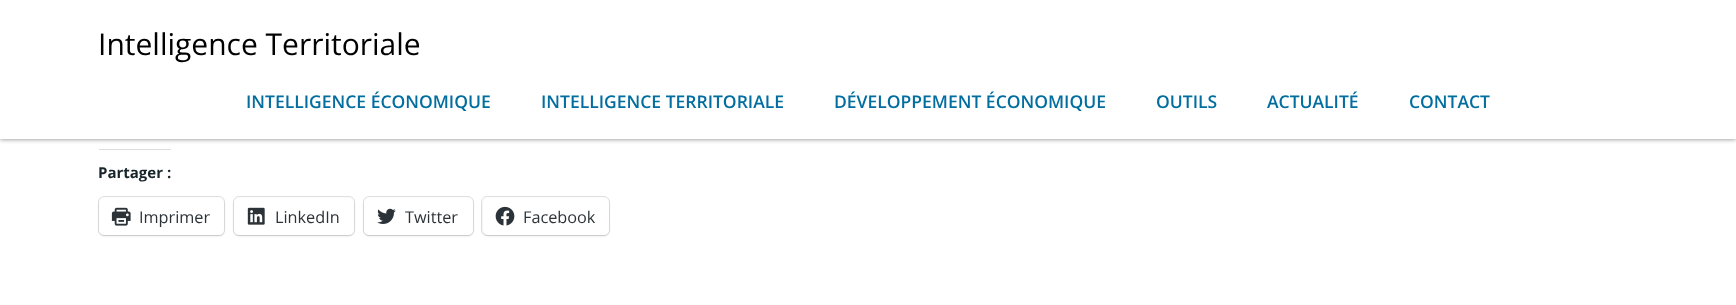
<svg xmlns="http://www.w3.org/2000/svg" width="1736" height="305">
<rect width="100%" height="100%" fill="#fff"/>
<rect width="1736" height="139" fill="#00000080" filter="blur(2.5px)"/>
<rect width="1736" height="139" fill="#fff"/>
<text x="98" y="55" style="font-family:Open Sans;font-size:30px;fill:#000">Intelligence Territoriale</text>
<text x="246" y="108" style="font-family:Open Sans;font-size:17.5px;font-weight:600;fill:#026e9f">INTELLIGENCE ÉCONOMIQUE</text>
<text x="541" y="108" style="font-family:Open Sans;font-size:17.5px;font-weight:600;fill:#026e9f">INTELLIGENCE TERRITORIALE</text>
<text x="834" y="108" style="font-family:Open Sans;font-size:17.5px;font-weight:600;fill:#026e9f">DÉVELOPPEMENT ÉCONOMIQUE</text>
<text x="1156" y="108" style="font-family:Open Sans;font-size:17.5px;font-weight:600;fill:#026e9f">OUTILS</text>
<text x="1267" y="108" style="font-family:Open Sans;font-size:17.5px;font-weight:600;fill:#026e9f">ACTUALITÉ</text>
<text x="1409" y="108" style="font-family:Open Sans;font-size:17.5px;font-weight:600;fill:#026e9f">CONTACT</text>
<rect x="99" y="149" width="72" height="1" fill="#dcdcde"/>
<text x="98" y="178" style="font-family:Open Sans;font-size:15px;font-weight:bold;fill:#17252a">Partager :</text>
<rect x="98.5" y="196.5" width="126" height="39" rx="5.5" fill="none" stroke="#e0e0e0"/>
<rect x="99" y="199" width="125" height="37" rx="5" fill="#0000001f" filter="blur(1px)"/>
<rect x="99" y="198" width="125" height="37" rx="5" fill="#fff"/>
<image x="111" y="207" width="20" height="19" href="media/1.png"/>
<text x="139" y="223" style="font-family:Open Sans;font-size:16.25px;fill:#2c3338">Imprimer</text>
<rect x="233.5" y="196.5" width="121" height="39" rx="5.5" fill="none" stroke="#e0e0e0"/>
<rect x="234" y="199" width="120" height="37" rx="5" fill="#0000001f" filter="blur(1px)"/>
<rect x="234" y="198" width="120" height="37" rx="5" fill="#fff"/>
<image x="247" y="207" width="18" height="18" href="media/2.png"/>
<text x="275" y="223" style="font-family:Open Sans;font-size:16.25px;fill:#2c3338">LinkedIn</text>
<rect x="363.5" y="196.5" width="110" height="39" rx="5.5" fill="none" stroke="#e0e0e0"/>
<rect x="364" y="199" width="109" height="37" rx="5" fill="#0000001f" filter="blur(1px)"/>
<rect x="364" y="198" width="109" height="37" rx="5" fill="#fff"/>
<image x="377" y="208" width="19" height="16" href="media/3.png"/>
<text x="405" y="223" style="font-family:Open Sans;font-size:16.25px;fill:#2c3338">Twitter</text>
<rect x="481.5" y="196.5" width="128" height="39" rx="5.5" fill="none" stroke="#e0e0e0"/>
<rect x="483" y="199" width="126" height="37" rx="5" fill="#0000001f" filter="blur(1px)"/>
<rect x="483" y="198" width="126" height="37" rx="5" fill="#fff"/>
<image x="495" y="206" width="20" height="20" href="media/4.png"/>
<text x="523" y="223" style="font-family:Open Sans;font-size:16.25px;fill:#2c3338">Facebook</text>
</svg>
